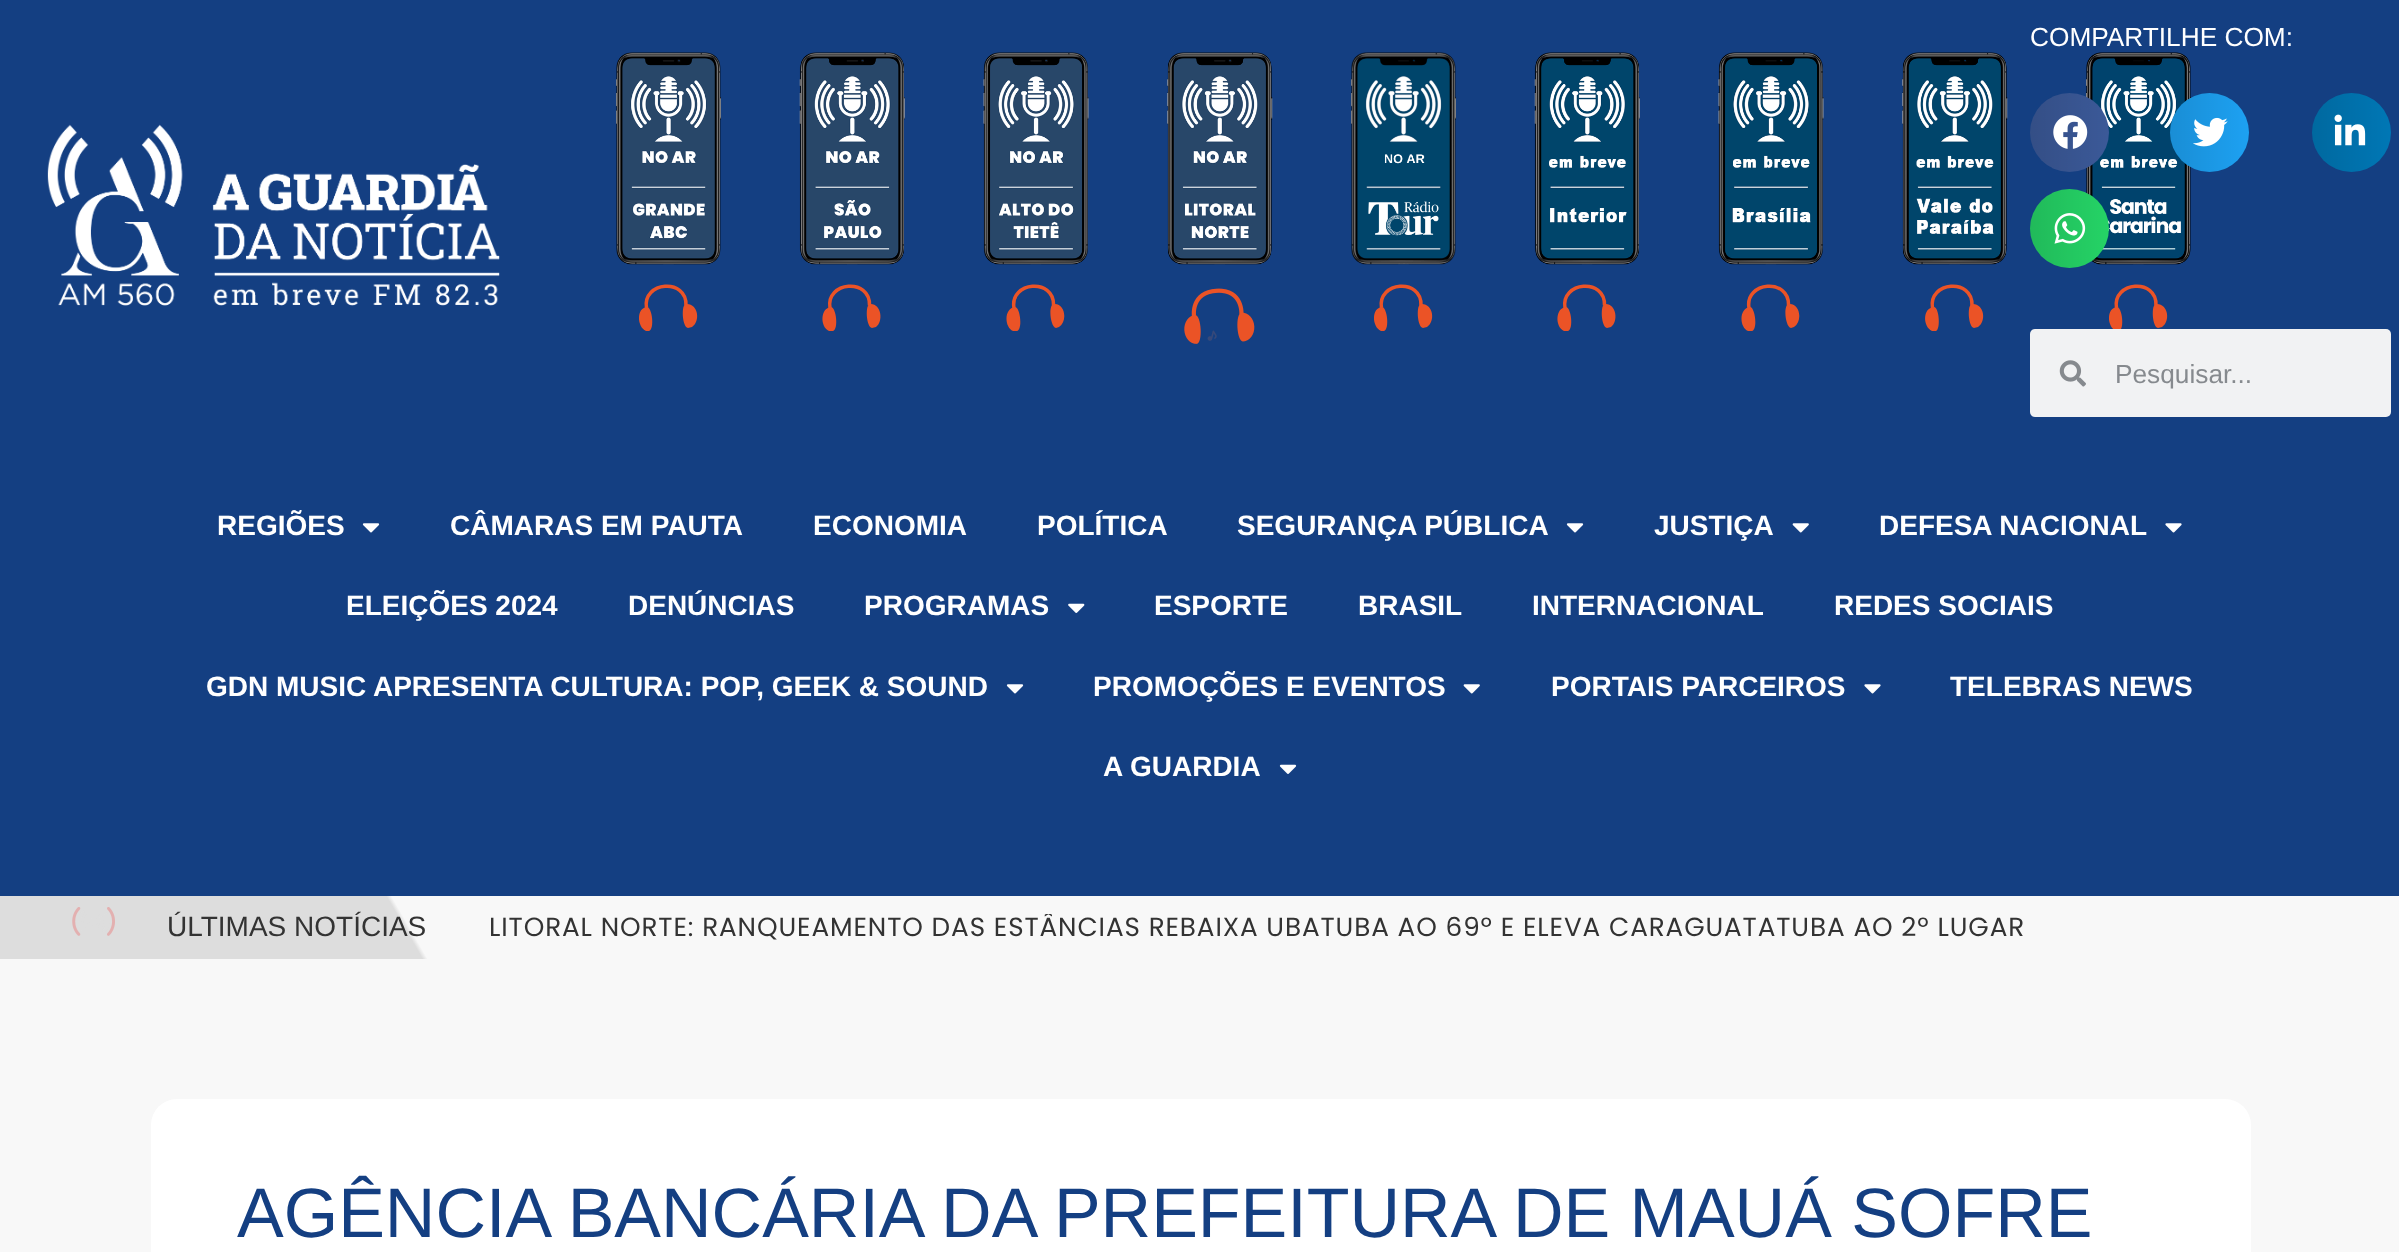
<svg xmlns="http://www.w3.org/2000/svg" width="2399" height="1252">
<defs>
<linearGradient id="g1" gradientUnits="userSpaceOnUse" x1="2030" y1="132" x2="2109" y2="132"><stop offset="0" stop-color="#000" stop-opacity="0.12"/><stop offset="1" stop-color="#000" stop-opacity="0"/></linearGradient>
<linearGradient id="g2" gradientUnits="userSpaceOnUse" x1="2170" y1="132" x2="2249" y2="132"><stop offset="0" stop-color="#000" stop-opacity="0.12"/><stop offset="1" stop-color="#000" stop-opacity="0"/></linearGradient>
<linearGradient id="g3" gradientUnits="userSpaceOnUse" x1="2312" y1="132" x2="2391" y2="132"><stop offset="0" stop-color="#000" stop-opacity="0.12"/><stop offset="1" stop-color="#000" stop-opacity="0"/></linearGradient>
<linearGradient id="g4" gradientUnits="userSpaceOnUse" x1="2030" y1="228" x2="2109" y2="228"><stop offset="0" stop-color="#000" stop-opacity="0.12"/><stop offset="1" stop-color="#000" stop-opacity="0"/></linearGradient>
<linearGradient id="g5" gradientUnits="userSpaceOnUse" x1="433" y1="816" x2="46" y2="1039"><stop offset="0.17" stop-color="#f8f8f8"/><stop offset="0.18" stop-color="#ddd"/></linearGradient>
<clipPath id="clip1"><rect x="427" y="914" width="1972" height="26"/></clipPath>
</defs>
<rect width="100%" height="100%" fill="#f8f8f8"/>
<rect width="2399" height="896" fill="#143f82"/>
<text x="2030" y="46" style="font-family:Liberation Sans;font-size:26.25px;fill:#fff">COMPARTILHE COM:</text>
<image x="2086" y="52" width="105" height="213" href="media/16.png"/>
<circle cx="2069.5" cy="132.5" r="39.5" fill="#3b5998"/>
<circle cx="2069.5" cy="132.5" r="39.5" fill="url(#g1)"/>
<image x="2053" y="115" width="35" height="34" href="media/1.png"/>
<circle cx="2209.5" cy="132.5" r="39.5" fill="#1da1f2"/>
<circle cx="2209.5" cy="132.5" r="39.5" fill="url(#g2)"/>
<image x="2193" y="117" width="35" height="30" href="media/2.png"/>
<circle cx="2351.5" cy="132.5" r="39.5" fill="#0077b5"/>
<circle cx="2351.5" cy="132.5" r="39.5" fill="url(#g3)"/>
<image x="2334" y="114" width="32" height="32" href="media/3.png"/>
<circle cx="2069.5" cy="228.5" r="39.5" fill="#25d366"/>
<circle cx="2069.5" cy="228.5" r="39.5" fill="url(#g4)"/>
<image x="2054" y="213" width="32" height="31" href="media/4.png"/>
<path d="M2116.5 308c-4.5-26.5 40.5-30.5 39.5-2.5" fill="none" stroke="#eb5326" stroke-width="3.5"/>
<path d="M2156 304c12-1 15 17 6 23l-4 1c-6-1-7-24-2-24zm-39 3c-11 1-10 20-1 24h3c6-2 3-24-2-24z" fill="#eb5326"/>
<rect x="2030" y="329" width="361" height="88" rx="5" fill="#f1f2f3"/>
<image x="2059" y="360" width="27" height="27" href="media/5.png"/>
<text x="2115" y="383" style="font-family:Liberation Sans;font-size:26.25px;fill:#868a8e">Pesquisar...</text>
<image x="47" y="124" width="453" height="182" href="media/6.png"/>
<image x="616" y="52" width="105" height="213" href="media/7.png"/>
<path d="M646.5 308c-4.5-26.5 40.5-30.5 39.5-2.5" fill="none" stroke="#eb5326" stroke-width="3.5"/>
<path d="M686 304c12-1 15 17 6 23l-4 1c-6-1-7-24-2-24zm-39 3c-11 1-10 20-1 24h3c6-2 3-24-2-24z" fill="#eb5326"/>
<image x="799" y="52" width="106" height="213" href="media/8.png"/>
<path d="M830 308c-4.5-26.5 40.5-30.5 39.5-2.5" fill="none" stroke="#eb5326" stroke-width="3.5"/>
<path d="M870 304c11-1 14 17 6 23l-4 1c-6-1-7-24-2-24zm-39 3c-11 1-11 20-2 24h4c6-2 3-24-2-24z" fill="#eb5326"/>
<image x="983" y="52" width="106" height="213" href="media/9.png"/>
<path d="M1014 308c-4.5-26.5 40.5-30.5 39.5-2.5" fill="none" stroke="#eb5326" stroke-width="3.5"/>
<path d="M1054 304c11-1 14 17 5 23l-3 1c-6-1-8-24-2-24zm-39 3c-11 1-11 20-2 24h4c6-2 3-24-2-24z" fill="#eb5326"/>
<image x="1167" y="52" width="106" height="213" href="media/10.png"/>
<image x="1184" y="288" width="71" height="56" href="media/11.png"/>
<image x="1351" y="52" width="105" height="213" href="media/12.png"/>
<path d="M1381.5 308c-4.5-26.5 40.5-30.5 39.5-2.5" fill="none" stroke="#eb5326" stroke-width="3.5"/>
<path d="M1421 304c12-1 15 17 6 23l-4 1c-6-1-7-24-2-24zm-39 3c-11 1-10 20-1 24h3c6-2 3-24-2-24z" fill="#eb5326"/>
<image x="1534" y="52" width="106" height="213" href="media/13.png"/>
<path d="M1565 308c-4.5-26.5 40.5-30.5 39.5-2.5" fill="none" stroke="#eb5326" stroke-width="3.5"/>
<path d="M1605 304c11-1 14 17 6 23l-4 1c-6-1-7-24-2-24zm-39 3c-11 1-11 20-2 24h4c6-2 3-24-2-24z" fill="#eb5326"/>
<image x="1718" y="52" width="106" height="213" href="media/14.png"/>
<path d="M1749 308c-4.5-26.5 40.5-30.5 39.5-2.5" fill="none" stroke="#eb5326" stroke-width="3.5"/>
<path d="M1789 304c11-1 14 17 5 23l-3 1c-6-1-8-24-2-24zm-39 3c-11 1-11 20-2 24h4c6-2 3-24-2-24z" fill="#eb5326"/>
<image x="1902" y="52" width="106" height="213" href="media/15.png"/>
<path d="M1932.5 308c-4.5-26.5 40.5-30.5 39.5-2.5" fill="none" stroke="#eb5326" stroke-width="3.5"/>
<path d="M1972 304c12-1 15 17 6 23l-4 1c-6-1-7-24-2-24zm-38 3c-12 1-11 20-2 24h4c5-2 3-24-2-24z" fill="#eb5326"/>
<text x="217" y="535" style="font-family:Liberation Sans;font-size:28px;font-weight:bold;fill:#fff">REGIÕES</text>
<image x="362" y="523" width="18" height="10" href="media/17.png"/>
<text x="450" y="535" style="font-family:Liberation Sans;font-size:28px;font-weight:bold;fill:#fff">CÂMARAS EM PAUTA</text>
<text x="813" y="535" style="font-family:Liberation Sans;font-size:28px;font-weight:bold;fill:#fff">ECONOMIA</text>
<text x="1037" y="535" style="font-family:Liberation Sans;font-size:28px;font-weight:bold;fill:#fff">POLÍTICA</text>
<text x="1237" y="535" style="font-family:Liberation Sans;font-size:28px;font-weight:bold;fill:#fff">SEGURANÇA PÚBLICA</text>
<image x="1566" y="523" width="18" height="10" href="media/17.png"/>
<text x="1654" y="535" style="font-family:Liberation Sans;font-size:28px;font-weight:bold;fill:#fff">JUSTIÇA</text>
<image x="1792" y="523" width="17" height="10" href="media/18.png"/>
<text x="1879" y="535" style="font-family:Liberation Sans;font-size:28px;font-weight:bold;fill:#fff">DEFESA NACIONAL</text>
<image x="2165" y="523" width="17" height="10" href="media/19.png"/>
<text x="346" y="615" style="font-family:Liberation Sans;font-size:28px;font-weight:bold;fill:#fff">ELEIÇÕES 2024</text>
<text x="628" y="615" style="font-family:Liberation Sans;font-size:28px;font-weight:bold;fill:#fff">DENÚNCIAS</text>
<text x="864" y="615" style="font-family:Liberation Sans;font-size:28px;font-weight:bold;fill:#fff">PROGRAMAS</text>
<image x="1068" y="603" width="17" height="10" href="media/20.png"/>
<text x="1154" y="615" style="font-family:Liberation Sans;font-size:28px;font-weight:bold;fill:#fff">ESPORTE</text>
<text x="1358" y="615" style="font-family:Liberation Sans;font-size:28px;font-weight:bold;fill:#fff">BRASIL</text>
<text x="1532" y="615" style="font-family:Liberation Sans;font-size:28px;font-weight:bold;fill:#fff">INTERNACIONAL</text>
<text x="1834" y="615" style="font-family:Liberation Sans;font-size:28px;font-weight:bold;fill:#fff">REDES SOCIAIS</text>
<text x="206" y="696" style="font-family:Liberation Sans;font-size:28px;font-weight:bold;fill:#fff">GDN MUSIC APRESENTA CULTURA: POP, GEEK &amp; SOUND</text>
<image x="1006" y="684" width="18" height="10" href="media/17.png"/>
<text x="1093" y="696" style="font-family:Liberation Sans;font-size:28px;font-weight:bold;fill:#fff">PROMOÇÕES E EVENTOS</text>
<image x="1463" y="684" width="17" height="10" href="media/18.png"/>
<text x="1551" y="696" style="font-family:Liberation Sans;font-size:28px;font-weight:bold;fill:#fff">PORTAIS PARCEIROS</text>
<image x="1864" y="684" width="17" height="10" href="media/19.png"/>
<text x="1950" y="696" style="font-family:Liberation Sans;font-size:28px;font-weight:bold;fill:#fff">TELEBRAS NEWS</text>
<text x="1103" y="776" style="font-family:Liberation Sans;font-size:28px;font-weight:bold;fill:#fff">A GUARDIA</text>
<image x="1279" y="764" width="18" height="10" href="media/21.png"/>
<rect y="896" width="427" height="63" fill="url(#g5)"/>
<image x="72" y="907" width="43" height="29" href="media/22.png"/>
<text x="167" y="936" style="font-family:Liberation Sans;font-size:28px;fill:#333">ÚLTIMAS NOTÍCIAS</text>
<g clip-path="url(#clip1)">
<text x="489" y="936" style="font-family:Poppins;font-size:26.25px;letter-spacing:0.88px;fill:#333">LITORAL NORTE: RANQUEAMENTO DAS ESTÂNCIAS REBAIXA UBATUBA AO 69º E ELEVA CARAGUATATUBA AO 2º LUGAR</text>
</g>
<rect x="151" y="1099" width="2100" height="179" rx="26" fill="#fff"/>
<text x="237" y="1237" style="font-family:Liberation Sans;font-size:70px;fill:#143f82">AGÊNCIA BANCÁRIA DA PREFEITURA DE MAUÁ SOFRE</text>
</svg>
